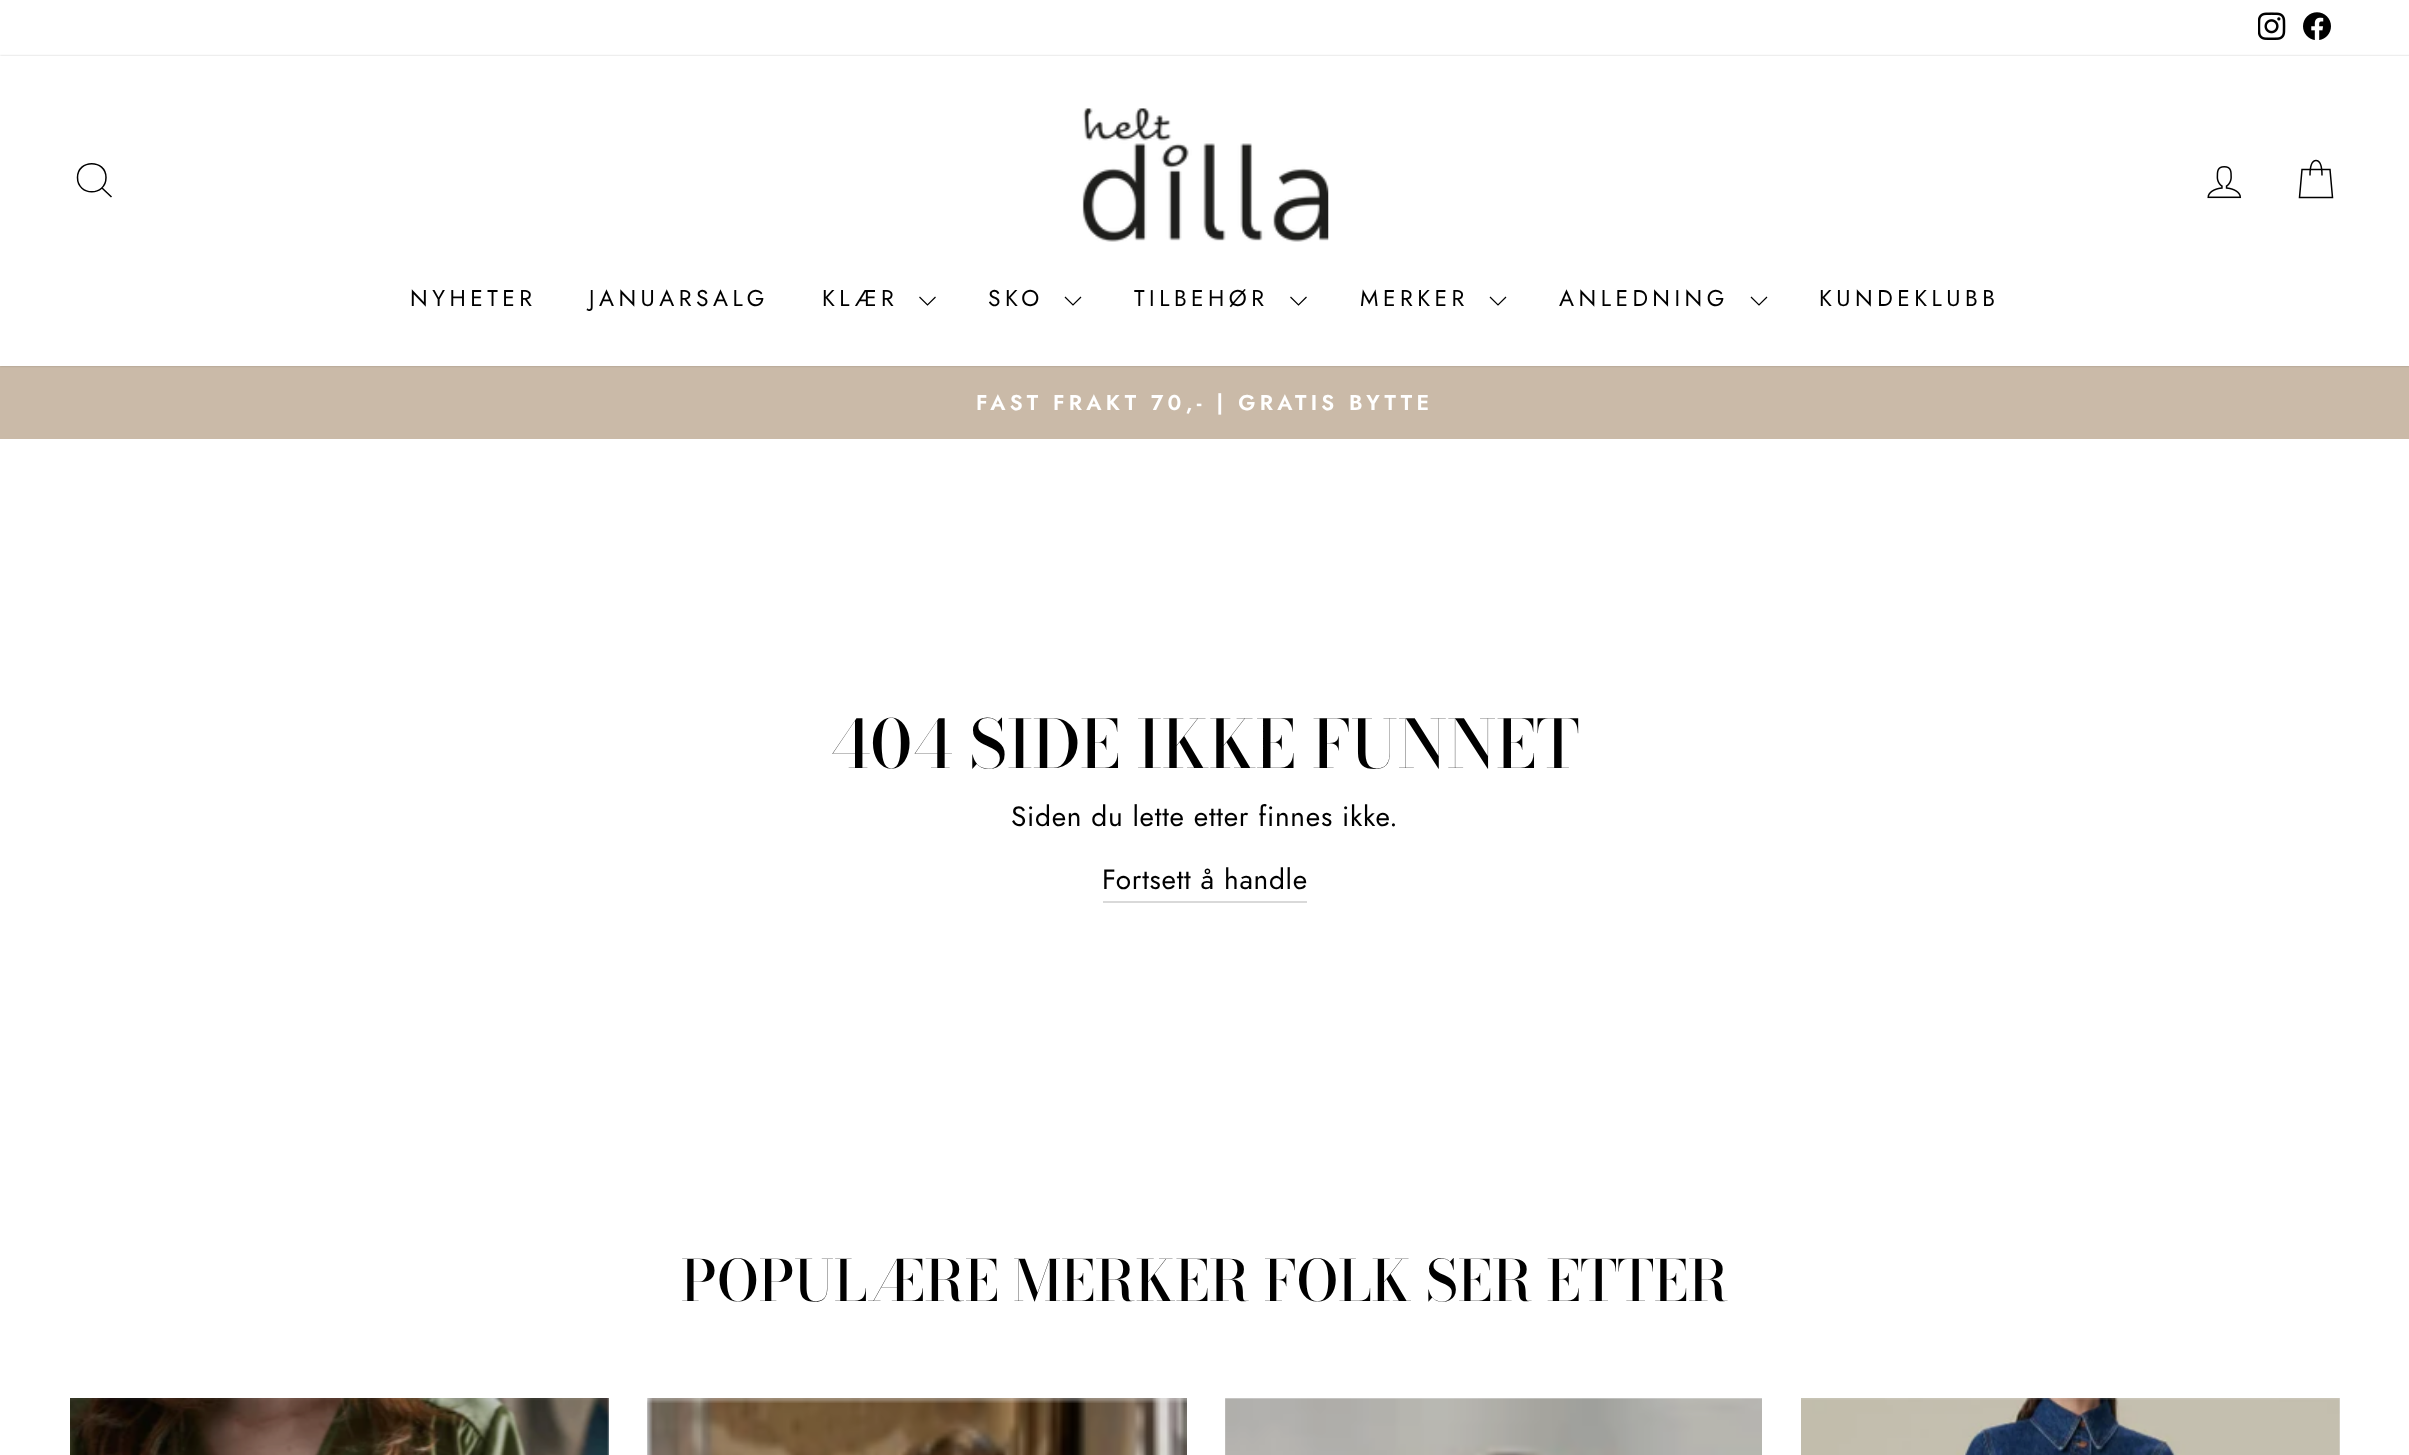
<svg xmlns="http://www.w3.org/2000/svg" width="2409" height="1455">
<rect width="100%" height="100%" fill="#fff"/>
<rect x="1801" y="1398" width="539" height="57" fill="#e6e6e6"/>
<rect x="1225" y="1398" width="537" height="57" fill="#e6e6e6"/>
<rect x="648" y="1398" width="539" height="57" fill="#e6e6e6"/>
<image x="2258" y="12" width="28" height="28" href="media/1.png"/>
<image x="2303" y="12" width="28" height="28" href="media/2.png"/>
<rect y="366" width="2409" height="73" fill="#cabaa8"/>
<rect y="56" width="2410" height="310" fill="#00000033" filter="blur(1px)"/>
<rect y="56" width="2409" height="310" fill="#fff"/>
<path d="M106 177.5c0 19-28.5 19-28.5 0c0-18.5 28.5-18.5 28.5 0zm5.5 19.5l-9.5-9" fill="none" stroke="#000" stroke-width="1.5"/>
<image x="1082" y="108" width="247" height="134" href="media/3.png"/>
<image x="2207" y="166" width="35" height="33" href="media/4.png"/>
<path d="M2310 175.5c0-12 2.5-15 6-15c3.5 0 6 3 6 15m-20-6h28l2.5 28h-33z" fill="none" stroke="#000" stroke-width="1.5"/>
<text x="410" y="306" style="font-family:Jost;font-size:22.75px;letter-spacing:4.5px;fill:#000">NYHETER</text>
<text x="589" y="306" style="font-family:Jost;font-size:22.75px;letter-spacing:4.5px;fill:#000">JANUARSALG</text>
<text x="822" y="306" style="font-family:Jost;font-size:22.75px;letter-spacing:4.5px;fill:#000">KLÆR</text>
<path d="M919.5 297l8 8l8-8" fill="none" stroke="#000" stroke-width="1.2"/>
<text x="988" y="306" style="font-family:Jost;font-size:22.75px;letter-spacing:4.5px;fill:#000">SKO</text>
<path d="M1065 297l8 8l8-8" fill="none" stroke="#000" stroke-width="1.2"/>
<text x="1134" y="306" style="font-family:Jost;font-size:22.75px;letter-spacing:4.5px;fill:#000">TILBEHØR</text>
<path d="M1290.5 297l8 8l8-8" fill="none" stroke="#000" stroke-width="1.2"/>
<text x="1360" y="306" style="font-family:Jost;font-size:22.75px;letter-spacing:4.5px;fill:#000">MERKER</text>
<path d="M1490 297l8 8l8-8" fill="none" stroke="#000" stroke-width="1.2"/>
<text x="1559" y="306" style="font-family:Jost;font-size:22.75px;letter-spacing:4.5px;fill:#000">ANLEDNING</text>
<path d="M1751 297l8 8l8-8" fill="none" stroke="#000" stroke-width="1.2"/>
<text x="1819" y="306" style="font-family:Jost;font-size:22.75px;letter-spacing:4.5px;fill:#000">KUNDEKLUBB</text>
<text x="976" y="410" style="font-family:Jost;font-size:21.4px;font-weight:600;letter-spacing:4.25px;fill:#fff">FAST FRAKT 70,- | GRATIS BYTTE</text>
<text x="830" y="768" style="font-family:Bodoni Moda;font-size:66.5px;font-weight:500;fill:#000">404 SIDE IKKE FUNNET</text>
<text x="1011" y="826" style="font-family:Jost;font-size:28px;letter-spacing:0.7px;fill:#000">Siden du lette etter finnes ikke.</text>
<rect x="1103" y="901" width="204" height="2" fill="#d9d9d9"/>
<text x="1102" y="889" style="font-family:Jost;font-size:28px;letter-spacing:0.7px;fill:#000">Fortsett å handle</text>
<text x="681" y="1301" style="font-family:'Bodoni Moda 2';font-size:56.5px;font-weight:500;fill:#000">POPULÆRE MERKER FOLK SER ETTER</text>
<image x="70" y="1398" width="539" height="57" href="media/5.png"/>
<image x="647" y="1398" width="540" height="57" href="media/6.png"/>
<image x="1225" y="1398" width="537" height="57" href="media/7.png"/>
<image x="1801" y="1398" width="539" height="57" href="media/8.png"/>
</svg>
